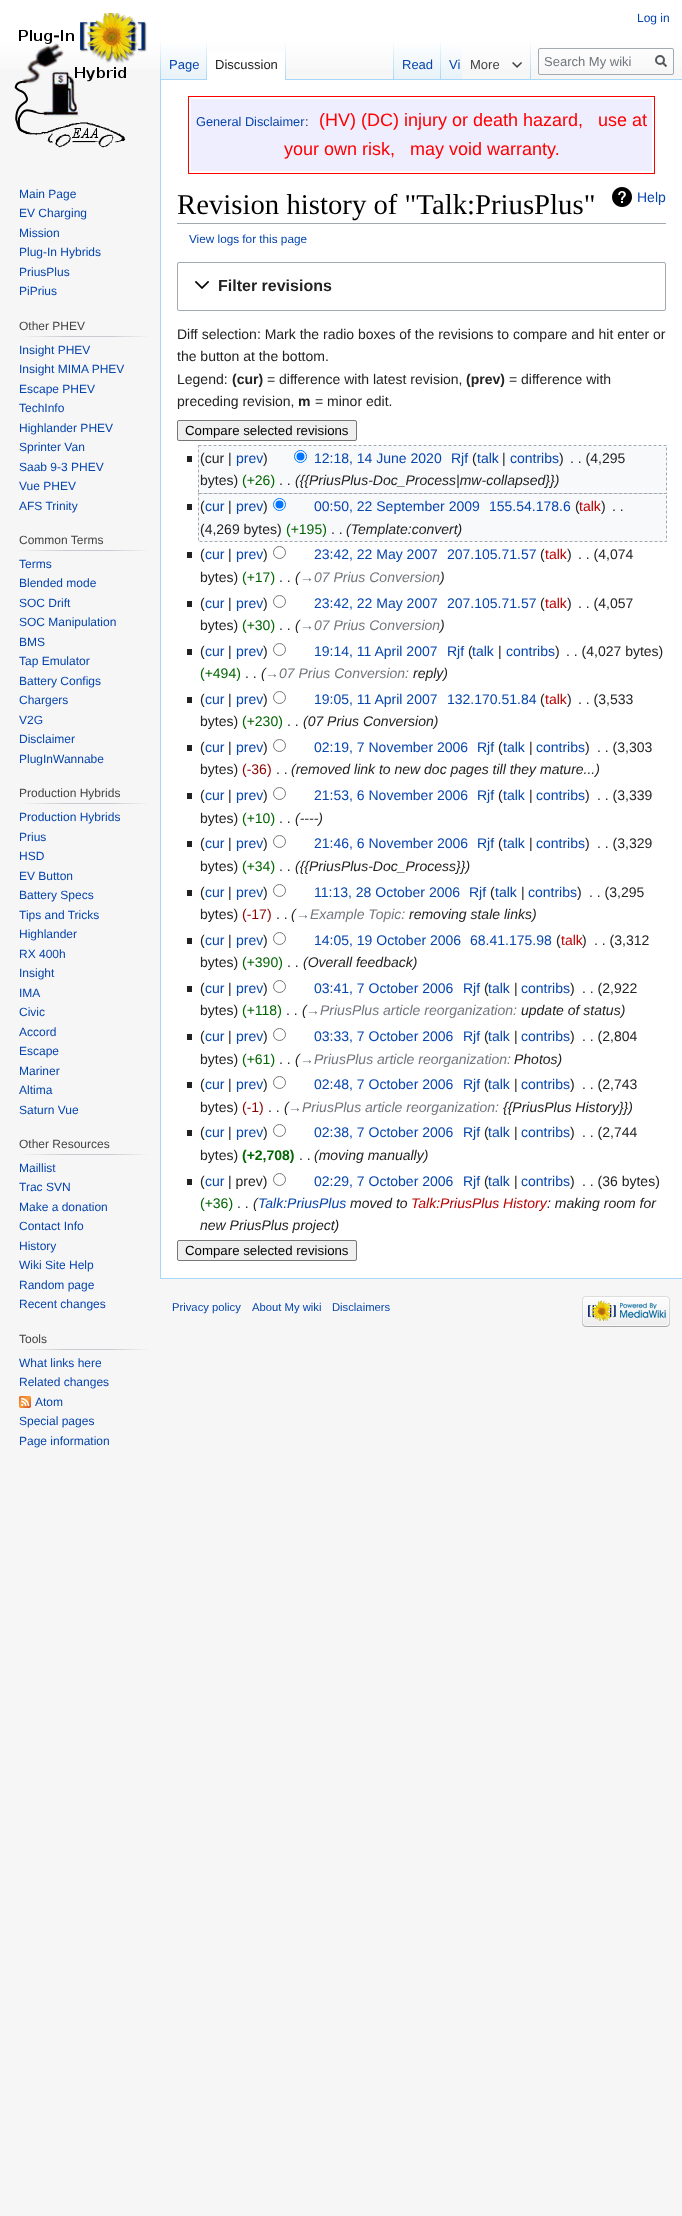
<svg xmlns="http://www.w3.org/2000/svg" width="682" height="2216">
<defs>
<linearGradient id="g1" gradientUnits="userSpaceOnUse" x1="341" y1="0" x2="341" y2="80"><stop offset="0.5" stop-color="#fff"/><stop offset="1" stop-color="#f6f6f6"/></linearGradient>
<linearGradient id="g2" gradientUnits="userSpaceOnUse" x1="161" y1="40" x2="161" y2="80"><stop offset="0" stop-color="#a7d7f9" stop-opacity="0"/><stop offset="1" stop-color="#a7d7f9"/></linearGradient>
<linearGradient id="g3" gradientUnits="userSpaceOnUse" x1="184" y1="80" x2="184" y2="40"><stop offset="0" stop-color="#77c1f6"/><stop offset="0.03" stop-color="#e8f2f8"/><stop offset="1" stop-color="#fff"/></linearGradient>
<linearGradient id="g4" gradientUnits="userSpaceOnUse" x1="207" y1="40" x2="207" y2="80"><stop offset="0" stop-color="#a7d7f9" stop-opacity="0"/><stop offset="1" stop-color="#a7d7f9"/></linearGradient>
<linearGradient id="g5" gradientUnits="userSpaceOnUse" x1="286" y1="40" x2="286" y2="80"><stop offset="0" stop-color="#fff"/><stop offset="1" stop-color="#a7d7f9"/></linearGradient>
<linearGradient id="g6" gradientUnits="userSpaceOnUse" x1="394" y1="40" x2="394" y2="80"><stop offset="0" stop-color="#a7d7f9" stop-opacity="0"/><stop offset="1" stop-color="#a7d7f9"/></linearGradient>
<linearGradient id="g7" gradientUnits="userSpaceOnUse" x1="418" y1="80" x2="418" y2="40"><stop offset="0" stop-color="#77c1f6"/><stop offset="0.03" stop-color="#e8f2f8"/><stop offset="1" stop-color="#fff"/></linearGradient>
<linearGradient id="g8" gradientUnits="userSpaceOnUse" x1="441" y1="40" x2="441" y2="80"><stop offset="0" stop-color="#a7d7f9" stop-opacity="0"/><stop offset="1" stop-color="#a7d7f9"/></linearGradient>
<linearGradient id="g9" gradientUnits="userSpaceOnUse" x1="452" y1="80" x2="452" y2="40"><stop offset="0" stop-color="#77c1f6"/><stop offset="0.03" stop-color="#e8f2f8"/><stop offset="1" stop-color="#fff"/></linearGradient>
<linearGradient id="g10" gradientUnits="userSpaceOnUse" x1="531" y1="40" x2="531" y2="80"><stop offset="0" stop-color="#a7d7f9" stop-opacity="0"/><stop offset="1" stop-color="#a7d7f9"/></linearGradient>
<linearGradient id="g11" gradientUnits="userSpaceOnUse" x1="19" y1="337" x2="150" y2="337"><stop offset="0" stop-color="#f6f6f6"/><stop offset="0.35" stop-color="#c8ccd1"/><stop offset="0.7" stop-color="#c8ccd1"/><stop offset="1" stop-color="#f6f6f6"/></linearGradient>
<linearGradient id="g12" gradientUnits="userSpaceOnUse" x1="19" y1="551" x2="150" y2="551"><stop offset="0" stop-color="#f6f6f6"/><stop offset="0.35" stop-color="#c8ccd1"/><stop offset="0.7" stop-color="#c8ccd1"/><stop offset="1" stop-color="#f6f6f6"/></linearGradient>
<linearGradient id="g13" gradientUnits="userSpaceOnUse" x1="19" y1="804" x2="150" y2="804"><stop offset="0" stop-color="#f6f6f6"/><stop offset="0.35" stop-color="#c8ccd1"/><stop offset="0.7" stop-color="#c8ccd1"/><stop offset="1" stop-color="#f6f6f6"/></linearGradient>
<linearGradient id="g14" gradientUnits="userSpaceOnUse" x1="19" y1="1155" x2="150" y2="1155"><stop offset="0" stop-color="#f6f6f6"/><stop offset="0.35" stop-color="#c8ccd1"/><stop offset="0.7" stop-color="#c8ccd1"/><stop offset="1" stop-color="#f6f6f6"/></linearGradient>
<linearGradient id="g15" gradientUnits="userSpaceOnUse" x1="19" y1="1350" x2="150" y2="1350"><stop offset="0" stop-color="#f6f6f6"/><stop offset="0.35" stop-color="#c8ccd1"/><stop offset="0.7" stop-color="#c8ccd1"/><stop offset="1" stop-color="#f6f6f6"/></linearGradient>
</defs>
<rect width="100%" height="100%" fill="#f6f6f6"/>
<rect width="682" height="69" fill="url(#g1)"/>
<text x="637" y="22" style="font-family:Liberation Sans;font-size:12px;fill:#0645ad">Log in</text>
<rect x="160" y="1278" width="522" height="1" fill="#a7d7f9"/>
<rect x="160" y="79" width="1" height="1200" fill="#a7d7f9"/>
<rect x="160" y="40" width="1" height="40" fill="url(#g2)"/>
<rect x="161" y="46" width="46" height="34" fill="url(#g3)"/>
<rect x="206" y="40" width="1" height="40" fill="url(#g4)"/>
<text x="169" y="69" style="font-family:Liberation Sans;font-size:13px;fill:#0645ad">Page</text>
<rect x="207" y="51" width="78" height="29" fill="#fff"/>
<rect x="285" y="40" width="1" height="40" fill="url(#g5)"/>
<text x="215" y="69" style="font-family:Liberation Sans;font-size:13px;fill:#222">Discussion</text>
<rect x="286" y="79" width="396" height="1" fill="#a7d7f9"/>
<rect x="393" y="40" width="1" height="40" fill="url(#g6)"/>
<rect x="394" y="46" width="47" height="33" fill="url(#g7)"/>
<rect x="440" y="40" width="1" height="40" fill="url(#g8)"/>
<text x="402" y="69" style="font-family:Liberation Sans;font-size:13px;fill:#0645ad">Read</text>
<rect x="441" y="46" width="21" height="33" fill="url(#g9)"/>
<text x="449" y="69" style="font-family:Liberation Sans;font-size:13px;fill:#0645ad">Vi</text>
<rect x="530" y="40" width="1" height="40" fill="url(#g10)"/>
<text x="470" y="69" style="font-family:Liberation Sans;font-size:13px;fill:#444">More</text>
<image x="512" y="62" width="10" height="6" href="media/1.png"/>
<rect x="538.5" y="48.5" width="135" height="26" rx="1.5" fill="none" stroke="#a2a9b1"/>
<text x="544" y="66" style="font-family:Liberation Sans;font-size:13px;fill:#72777d">Search My wiki</text>
<path d="M666.5 66.5l-4-4" fill="none" stroke="#54595d" stroke-width="2"/>
<circle cx="660" cy="60" r="4" fill="none" stroke="#54595d" stroke-width="2"/>
<image x="14" y="13" width="133" height="135" href="media/2.png"/>
<text x="19" y="198" style="font-family:Liberation Sans;font-size:12px;fill:#0645ad">Main Page</text>
<text x="19" y="217" style="font-family:Liberation Sans;font-size:12px;fill:#0645ad">EV Charging</text>
<text x="19" y="237" style="font-family:Liberation Sans;font-size:12px;fill:#0645ad">Mission</text>
<text x="19" y="256" style="font-family:Liberation Sans;font-size:12px;fill:#0645ad">Plug-In Hybrids</text>
<text x="19" y="276" style="font-family:Liberation Sans;font-size:12px;fill:#0645ad">PriusPlus</text>
<text x="19" y="295" style="font-family:Liberation Sans;font-size:12px;fill:#0645ad">PiPrius</text>
<text x="19" y="330" style="font-family:Liberation Sans;font-size:12px;fill:#444">Other PHEV</text>
<rect x="19" y="336" width="131" height="1" fill="url(#g11)"/>
<text x="19" y="354" style="font-family:Liberation Sans;font-size:12px;fill:#0645ad">Insight PHEV</text>
<text x="19" y="373" style="font-family:Liberation Sans;font-size:12px;fill:#0645ad">Insight MIMA PHEV</text>
<text x="19" y="393" style="font-family:Liberation Sans;font-size:12px;fill:#0645ad">Escape PHEV</text>
<text x="19" y="412" style="font-family:Liberation Sans;font-size:12px;fill:#0645ad">TechInfo</text>
<text x="19" y="432" style="font-family:Liberation Sans;font-size:12px;fill:#0645ad">Highlander PHEV</text>
<text x="19" y="451" style="font-family:Liberation Sans;font-size:12px;fill:#0645ad">Sprinter Van</text>
<text x="19" y="471" style="font-family:Liberation Sans;font-size:12px;fill:#0645ad">Saab 9-3 PHEV</text>
<text x="19" y="490" style="font-family:Liberation Sans;font-size:12px;fill:#0645ad">Vue PHEV</text>
<text x="19" y="510" style="font-family:Liberation Sans;font-size:12px;fill:#0645ad">AFS Trinity</text>
<text x="19" y="544" style="font-family:Liberation Sans;font-size:12px;fill:#444">Common Terms</text>
<rect x="19" y="550" width="131" height="1" fill="url(#g12)"/>
<text x="19" y="568" style="font-family:Liberation Sans;font-size:12px;fill:#0645ad">Terms</text>
<text x="19" y="587" style="font-family:Liberation Sans;font-size:12px;fill:#0645ad">Blended mode</text>
<text x="19" y="607" style="font-family:Liberation Sans;font-size:12px;fill:#0645ad">SOC Drift</text>
<text x="19" y="626" style="font-family:Liberation Sans;font-size:12px;fill:#0645ad">SOC Manipulation</text>
<text x="19" y="646" style="font-family:Liberation Sans;font-size:12px;fill:#0645ad">BMS</text>
<text x="19" y="665" style="font-family:Liberation Sans;font-size:12px;fill:#0645ad">Tap Emulator</text>
<text x="19" y="685" style="font-family:Liberation Sans;font-size:12px;fill:#0645ad">Battery Configs</text>
<text x="19" y="704" style="font-family:Liberation Sans;font-size:12px;fill:#0645ad">Chargers</text>
<text x="19" y="724" style="font-family:Liberation Sans;font-size:12px;fill:#0645ad">V2G</text>
<text x="19" y="743" style="font-family:Liberation Sans;font-size:12px;fill:#0645ad">Disclaimer</text>
<text x="19" y="763" style="font-family:Liberation Sans;font-size:12px;fill:#0645ad">PlugInWannabe</text>
<text x="19" y="797" style="font-family:Liberation Sans;font-size:12px;fill:#444">Production Hybrids</text>
<rect x="19" y="803" width="131" height="1" fill="url(#g13)"/>
<text x="19" y="821" style="font-family:Liberation Sans;font-size:12px;fill:#0645ad">Production Hybrids</text>
<text x="19" y="841" style="font-family:Liberation Sans;font-size:12px;fill:#0645ad">Prius</text>
<text x="19" y="860" style="font-family:Liberation Sans;font-size:12px;fill:#0645ad">HSD</text>
<text x="19" y="880" style="font-family:Liberation Sans;font-size:12px;fill:#0645ad">EV Button</text>
<text x="19" y="899" style="font-family:Liberation Sans;font-size:12px;fill:#0645ad">Battery Specs</text>
<text x="19" y="919" style="font-family:Liberation Sans;font-size:12px;fill:#0645ad">Tips and Tricks</text>
<text x="19" y="938" style="font-family:Liberation Sans;font-size:12px;fill:#0645ad">Highlander</text>
<text x="19" y="958" style="font-family:Liberation Sans;font-size:12px;fill:#0645ad">RX 400h</text>
<text x="19" y="977" style="font-family:Liberation Sans;font-size:12px;fill:#0645ad">Insight</text>
<text x="19" y="997" style="font-family:Liberation Sans;font-size:12px;fill:#0645ad">IMA</text>
<text x="19" y="1016" style="font-family:Liberation Sans;font-size:12px;fill:#0645ad">Civic</text>
<text x="19" y="1036" style="font-family:Liberation Sans;font-size:12px;fill:#0645ad">Accord</text>
<text x="19" y="1055" style="font-family:Liberation Sans;font-size:12px;fill:#0645ad">Escape</text>
<text x="19" y="1075" style="font-family:Liberation Sans;font-size:12px;fill:#0645ad">Mariner</text>
<text x="19" y="1094" style="font-family:Liberation Sans;font-size:12px;fill:#0645ad">Altima</text>
<text x="19" y="1114" style="font-family:Liberation Sans;font-size:12px;fill:#0645ad">Saturn Vue</text>
<text x="19" y="1148" style="font-family:Liberation Sans;font-size:12px;fill:#444">Other Resources</text>
<rect x="19" y="1154" width="131" height="1" fill="url(#g14)"/>
<text x="19" y="1172" style="font-family:Liberation Sans;font-size:12px;fill:#0645ad">Maillist</text>
<text x="19" y="1191" style="font-family:Liberation Sans;font-size:12px;fill:#0645ad">Trac SVN</text>
<text x="19" y="1211" style="font-family:Liberation Sans;font-size:12px;fill:#0645ad">Make a donation</text>
<text x="19" y="1230" style="font-family:Liberation Sans;font-size:12px;fill:#0645ad">Contact Info</text>
<text x="19" y="1250" style="font-family:Liberation Sans;font-size:12px;fill:#0645ad">History</text>
<text x="19" y="1269" style="font-family:Liberation Sans;font-size:12px;fill:#0645ad">Wiki Site Help</text>
<text x="19" y="1289" style="font-family:Liberation Sans;font-size:12px;fill:#0645ad">Random page</text>
<text x="19" y="1308" style="font-family:Liberation Sans;font-size:12px;fill:#0645ad">Recent changes</text>
<text x="19" y="1343" style="font-family:Liberation Sans;font-size:12px;fill:#444">Tools</text>
<rect x="19" y="1349" width="131" height="1" fill="url(#g15)"/>
<text x="19" y="1367" style="font-family:Liberation Sans;font-size:12px;fill:#0645ad">What links here</text>
<text x="19" y="1386" style="font-family:Liberation Sans;font-size:12px;fill:#0645ad">Related changes</text>
<image x="19" y="1396" width="12" height="12" href="media/3.png"/>
<text x="35" y="1406" style="font-family:Liberation Sans;font-size:12px;fill:#0645ad">Atom</text>
<text x="19" y="1425" style="font-family:Liberation Sans;font-size:12px;fill:#0645ad">Special pages</text>
<text x="19" y="1445" style="font-family:Liberation Sans;font-size:12px;fill:#0645ad">Page information</text>
<rect x="161" y="80" width="521" height="1198" fill="#fff"/>
<rect x="188.5" y="96.5" width="466" height="77" fill="none" stroke="#f00"/>
<rect x="191" y="99" width="461" height="72" fill="#eef"/>
<text x="196" y="126" style="font-family:Liberation Sans;font-size:12.75px;fill:#0645ad">General Disclaimer</text>
<text x="305" y="126" style="font-family:Liberation Sans;font-size:12.75px;fill:#222">:</text>
<text x="319" y="126" style="font-family:Liberation Sans;font-size:18px;fill:#f00" xml:space="preserve">(HV) (DC) injury or death hazard,   use at</text>
<text x="284" y="155" style="font-family:Liberation Sans;font-size:18px;fill:#f00" xml:space="preserve">your own risk,   may void warranty.</text>
<rect x="177" y="223" width="489" height="1" fill="#a2a9b1"/>
<text x="177" y="214" style="font-family:Liberation Serif;font-size:28.75px;fill:#000">Revision history of "Talk:PriusPlus"</text>
<image x="612" y="187" width="20" height="20" href="media/4.png"/>
<text x="637" y="202" style="font-family:Liberation Sans;font-size:14px;fill:#0645ad">Help</text>
<text x="189" y="243" style="font-family:Liberation Sans;font-size:11.75px;fill:#0645ad">View logs for this page</text>
<rect x="177.5" y="262.5" width="488" height="48" rx="1.5" fill="none" stroke="#a2a9b1"/>
<image x="195" y="281" width="15" height="8" href="media/5.png"/>
<text x="218" y="291" style="font-family:Liberation Sans;font-size:16px;font-weight:bold;fill:#222">Filter revisions</text>
<text x="177" y="339" style="font-family:Liberation Sans;font-size:14px;fill:#222">Diff selection: Mark the radio boxes of the revisions to compare and hit enter or</text>
<text x="177" y="361" style="font-family:Liberation Sans;font-size:14px;fill:#222">the button at the bottom.</text>
<text x="177" y="384" style="font-family:Liberation Sans;font-size:14px;fill:#222">Legend:</text>
<text x="232" y="384" style="font-family:Liberation Sans;font-size:14px;font-weight:bold;fill:#222">(cur)</text>
<text x="267" y="384" style="font-family:Liberation Sans;font-size:14px;fill:#222">= difference with latest revision,</text>
<text x="466" y="384" style="font-family:Liberation Sans;font-size:14px;font-weight:bold;fill:#222">(prev)</text>
<text x="509" y="384" style="font-family:Liberation Sans;font-size:14px;fill:#222">= difference with</text>
<text x="177" y="406" style="font-family:Liberation Sans;font-size:14px;fill:#222">preceding revision,</text>
<text x="298" y="406" style="font-family:Liberation Sans;font-size:14px;font-weight:bold;fill:#222">m</text>
<text x="315" y="406" style="font-family:Liberation Sans;font-size:14px;fill:#222">= minor edit.</text>
<rect x="177.5" y="420.5" width="179" height="20" rx="1.5" fill="#efefef" stroke="#767676"/>
<text x="185" y="435" style="font-family:Liberation Sans;font-size:13.25px;fill:#000">Compare selected revisions</text>
<rect x="199" y="446" width="467" height="47" fill="#f8f9fa"/>
<rect x="187" y="456" width="5" height="6" fill="#222"/>
<text x="200" y="463" style="font-family:Liberation Sans;font-size:14px;fill:#222">(cur |</text>
<text x="236" y="463" style="font-family:Liberation Sans;font-size:14px;fill:#0645ad">prev</text>
<text x="263" y="463" style="font-family:Liberation Sans;font-size:14px;fill:#222">)</text>
<circle cx="300.5" cy="456.5" r="6" fill="#fff" stroke="#0075ff"/>
<circle cx="300.5" cy="456.5" r="4" fill="#0075ff"/>
<text x="314" y="463" style="font-family:Liberation Sans;font-size:14px;fill:#0645ad">12:18, 14 June 2020</text>
<text x="451" y="463" style="font-family:Liberation Sans;font-size:14px;fill:#0645ad">Rjf</text>
<text x="472" y="463" style="font-family:Liberation Sans;font-size:14px;fill:#222">(</text>
<text x="477" y="463" style="font-family:Liberation Sans;font-size:14px;fill:#0645ad">talk</text>
<text x="502" y="463" style="font-family:Liberation Sans;font-size:14px;fill:#222">|</text>
<text x="510" y="463" style="font-family:Liberation Sans;font-size:14px;fill:#0645ad">contribs</text>
<text x="559" y="463" style="font-family:Liberation Sans;font-size:14px;fill:#222">)</text>
<text x="570" y="463" style="font-family:Liberation Sans;font-size:14px;fill:#222">. . (4,295</text>
<text x="200" y="485" style="font-family:Liberation Sans;font-size:14px;fill:#222">bytes)</text>
<text x="242" y="485" style="font-family:Liberation Sans;font-size:14px;fill:#006400">(+26)</text>
<text x="279" y="485" style="font-family:Liberation Sans;font-size:14px;fill:#222">. .</text>
<text x="295" y="485" style="font-family:Liberation Sans;font-size:14px;font-style:italic;fill:#222">({{PriusPlus-Doc_Process|mw-collapsed}})</text>
<path d="M198.5 445.5h468v48h-468z" fill="none" stroke="#a2a9b1" stroke-dasharray="3 2"/>
<rect x="199" y="494" width="467" height="47" fill="#f8f9fa"/>
<rect x="187" y="504" width="5" height="6" fill="#222"/>
<text x="200" y="511" style="font-family:Liberation Sans;font-size:14px;fill:#222">(</text>
<text x="205" y="511" style="font-family:Liberation Sans;font-size:14px;fill:#0645ad">cur</text>
<text x="228" y="511" style="font-family:Liberation Sans;font-size:14px;fill:#222">|</text>
<text x="236" y="511" style="font-family:Liberation Sans;font-size:14px;fill:#0645ad">prev</text>
<text x="263" y="511" style="font-family:Liberation Sans;font-size:14px;fill:#222">)</text>
<circle cx="279.5" cy="504.5" r="6" fill="#fff" stroke="#0075ff"/>
<circle cx="279.5" cy="504.5" r="4" fill="#0075ff"/>
<text x="314" y="511" style="font-family:Liberation Sans;font-size:14px;fill:#0645ad">00:50, 22 September 2009</text>
<text x="489" y="511" style="font-family:Liberation Sans;font-size:14px;fill:#0645ad">155.54.178.6</text>
<text x="575" y="511" style="font-family:Liberation Sans;font-size:14px;fill:#222">(</text>
<text x="579" y="511" style="font-family:Liberation Sans;font-size:14px;fill:#ba0000">talk</text>
<text x="601" y="511" style="font-family:Liberation Sans;font-size:14px;fill:#222">)</text>
<text x="612" y="511" style="font-family:Liberation Sans;font-size:14px;fill:#222">. .</text>
<text x="200" y="534" style="font-family:Liberation Sans;font-size:14px;fill:#222">(4,269 bytes)</text>
<text x="286" y="534" style="font-family:Liberation Sans;font-size:14px;fill:#006400">(+195)</text>
<text x="331" y="534" style="font-family:Liberation Sans;font-size:14px;fill:#222">. .</text>
<text x="346" y="534" style="font-family:Liberation Sans;font-size:14px;font-style:italic;fill:#222">(Template:convert)</text>
<path d="M198.5 493.5h468v48h-468z" fill="none" stroke="#a2a9b1" stroke-dasharray="3 2"/>
<rect x="187" y="552" width="5" height="6" fill="#222"/>
<text x="200" y="559" style="font-family:Liberation Sans;font-size:14px;fill:#222">(</text>
<text x="205" y="559" style="font-family:Liberation Sans;font-size:14px;fill:#0645ad">cur</text>
<text x="228" y="559" style="font-family:Liberation Sans;font-size:14px;fill:#222">|</text>
<text x="236" y="559" style="font-family:Liberation Sans;font-size:14px;fill:#0645ad">prev</text>
<text x="263" y="559" style="font-family:Liberation Sans;font-size:14px;fill:#222">)</text>
<circle cx="279.5" cy="552.5" r="6" fill="none" stroke="#767676"/>
<text x="314" y="559" style="font-family:Liberation Sans;font-size:14px;fill:#0645ad">23:42, 22 May 2007</text>
<text x="447" y="559" style="font-family:Liberation Sans;font-size:14px;fill:#0645ad">207.105.71.57</text>
<text x="540" y="559" style="font-family:Liberation Sans;font-size:14px;fill:#222">(</text>
<text x="545" y="559" style="font-family:Liberation Sans;font-size:14px;fill:#ba0000">talk</text>
<text x="567" y="559" style="font-family:Liberation Sans;font-size:14px;fill:#222">)</text>
<text x="578" y="559" style="font-family:Liberation Sans;font-size:14px;fill:#222">. . (4,074</text>
<text x="200" y="582" style="font-family:Liberation Sans;font-size:14px;fill:#222">bytes)</text>
<text x="242" y="582" style="font-family:Liberation Sans;font-size:14px;fill:#006400">(+17)</text>
<text x="279" y="582" style="font-family:Liberation Sans;font-size:14px;fill:#222">. .</text>
<text x="295" y="582" style="font-family:Liberation Sans;font-size:14px;font-style:italic;fill:#222">(</text>
<text x="300" y="582" style="font-family:Liberation Sans;font-size:14px;font-style:italic;fill:#72777d">→07 Prius Conversion</text>
<text x="440" y="582" style="font-family:Liberation Sans;font-size:14px;font-style:italic;fill:#222">)</text>
<rect x="187" y="601" width="5" height="6" fill="#222"/>
<text x="200" y="608" style="font-family:Liberation Sans;font-size:14px;fill:#222">(</text>
<text x="205" y="608" style="font-family:Liberation Sans;font-size:14px;fill:#0645ad">cur</text>
<text x="228" y="608" style="font-family:Liberation Sans;font-size:14px;fill:#222">|</text>
<text x="236" y="608" style="font-family:Liberation Sans;font-size:14px;fill:#0645ad">prev</text>
<text x="263" y="608" style="font-family:Liberation Sans;font-size:14px;fill:#222">)</text>
<circle cx="279.5" cy="601.5" r="6" fill="none" stroke="#767676"/>
<text x="314" y="608" style="font-family:Liberation Sans;font-size:14px;fill:#0645ad">23:42, 22 May 2007</text>
<text x="447" y="608" style="font-family:Liberation Sans;font-size:14px;fill:#0645ad">207.105.71.57</text>
<text x="540" y="608" style="font-family:Liberation Sans;font-size:14px;fill:#222">(</text>
<text x="545" y="608" style="font-family:Liberation Sans;font-size:14px;fill:#ba0000">talk</text>
<text x="567" y="608" style="font-family:Liberation Sans;font-size:14px;fill:#222">)</text>
<text x="578" y="608" style="font-family:Liberation Sans;font-size:14px;fill:#222">. . (4,057</text>
<text x="200" y="630" style="font-family:Liberation Sans;font-size:14px;fill:#222">bytes)</text>
<text x="242" y="630" style="font-family:Liberation Sans;font-size:14px;fill:#006400">(+30)</text>
<text x="279" y="630" style="font-family:Liberation Sans;font-size:14px;fill:#222">. .</text>
<text x="295" y="630" style="font-family:Liberation Sans;font-size:14px;font-style:italic;fill:#222">(</text>
<text x="300" y="630" style="font-family:Liberation Sans;font-size:14px;font-style:italic;fill:#72777d">→07 Prius Conversion</text>
<text x="440" y="630" style="font-family:Liberation Sans;font-size:14px;font-style:italic;fill:#222">)</text>
<rect x="187" y="649" width="5" height="6" fill="#222"/>
<text x="200" y="656" style="font-family:Liberation Sans;font-size:14px;fill:#222">(</text>
<text x="205" y="656" style="font-family:Liberation Sans;font-size:14px;fill:#0645ad">cur</text>
<text x="228" y="656" style="font-family:Liberation Sans;font-size:14px;fill:#222">|</text>
<text x="236" y="656" style="font-family:Liberation Sans;font-size:14px;fill:#0645ad">prev</text>
<text x="263" y="656" style="font-family:Liberation Sans;font-size:14px;fill:#222">)</text>
<circle cx="279.5" cy="649.5" r="6" fill="none" stroke="#767676"/>
<text x="314" y="656" style="font-family:Liberation Sans;font-size:14px;fill:#0645ad">19:14, 11 April 2007</text>
<text x="447" y="656" style="font-family:Liberation Sans;font-size:14px;fill:#0645ad">Rjf</text>
<text x="468" y="656" style="font-family:Liberation Sans;font-size:14px;fill:#222">(</text>
<text x="472" y="656" style="font-family:Liberation Sans;font-size:14px;fill:#0645ad">talk</text>
<text x="498" y="656" style="font-family:Liberation Sans;font-size:14px;fill:#222">|</text>
<text x="506" y="656" style="font-family:Liberation Sans;font-size:14px;fill:#0645ad">contribs</text>
<text x="555" y="656" style="font-family:Liberation Sans;font-size:14px;fill:#222">)</text>
<text x="566" y="656" style="font-family:Liberation Sans;font-size:14px;fill:#222">. . (4,027 bytes)</text>
<text x="200" y="678" style="font-family:Liberation Sans;font-size:14px;fill:#006400">(+494)</text>
<text x="245" y="678" style="font-family:Liberation Sans;font-size:14px;fill:#222">. .</text>
<text x="261" y="678" style="font-family:Liberation Sans;font-size:14px;font-style:italic;fill:#222">(</text>
<text x="265" y="678" style="font-family:Liberation Sans;font-size:14px;font-style:italic;fill:#72777d">→07 Prius Conversion:</text>
<text x="413" y="678" style="font-family:Liberation Sans;font-size:14px;font-style:italic;fill:#222">reply)</text>
<rect x="187" y="697" width="5" height="6" fill="#222"/>
<text x="200" y="704" style="font-family:Liberation Sans;font-size:14px;fill:#222">(</text>
<text x="205" y="704" style="font-family:Liberation Sans;font-size:14px;fill:#0645ad">cur</text>
<text x="228" y="704" style="font-family:Liberation Sans;font-size:14px;fill:#222">|</text>
<text x="236" y="704" style="font-family:Liberation Sans;font-size:14px;fill:#0645ad">prev</text>
<text x="263" y="704" style="font-family:Liberation Sans;font-size:14px;fill:#222">)</text>
<circle cx="279.5" cy="697.5" r="6" fill="none" stroke="#767676"/>
<text x="314" y="704" style="font-family:Liberation Sans;font-size:14px;fill:#0645ad">19:05, 11 April 2007</text>
<text x="447" y="704" style="font-family:Liberation Sans;font-size:14px;fill:#0645ad">132.170.51.84</text>
<text x="540" y="704" style="font-family:Liberation Sans;font-size:14px;fill:#222">(</text>
<text x="545" y="704" style="font-family:Liberation Sans;font-size:14px;fill:#ba0000">talk</text>
<text x="567" y="704" style="font-family:Liberation Sans;font-size:14px;fill:#222">)</text>
<text x="578" y="704" style="font-family:Liberation Sans;font-size:14px;fill:#222">. . (3,533</text>
<text x="200" y="726" style="font-family:Liberation Sans;font-size:14px;fill:#222">bytes)</text>
<text x="242" y="726" style="font-family:Liberation Sans;font-size:14px;fill:#006400">(+230)</text>
<text x="287" y="726" style="font-family:Liberation Sans;font-size:14px;fill:#222">. .</text>
<text x="303" y="726" style="font-family:Liberation Sans;font-size:14px;font-style:italic;fill:#222">(07 Prius Conversion)</text>
<rect x="187" y="745" width="5" height="6" fill="#222"/>
<text x="200" y="752" style="font-family:Liberation Sans;font-size:14px;fill:#222">(</text>
<text x="205" y="752" style="font-family:Liberation Sans;font-size:14px;fill:#0645ad">cur</text>
<text x="228" y="752" style="font-family:Liberation Sans;font-size:14px;fill:#222">|</text>
<text x="236" y="752" style="font-family:Liberation Sans;font-size:14px;fill:#0645ad">prev</text>
<text x="263" y="752" style="font-family:Liberation Sans;font-size:14px;fill:#222">)</text>
<circle cx="279.5" cy="745.5" r="6" fill="none" stroke="#767676"/>
<text x="314" y="752" style="font-family:Liberation Sans;font-size:14px;fill:#0645ad">02:19, 7 November 2006</text>
<text x="477" y="752" style="font-family:Liberation Sans;font-size:14px;fill:#0645ad">Rjf</text>
<text x="498" y="752" style="font-family:Liberation Sans;font-size:14px;fill:#222">(</text>
<text x="503" y="752" style="font-family:Liberation Sans;font-size:14px;fill:#0645ad">talk</text>
<text x="529" y="752" style="font-family:Liberation Sans;font-size:14px;fill:#222">|</text>
<text x="536" y="752" style="font-family:Liberation Sans;font-size:14px;fill:#0645ad">contribs</text>
<text x="585" y="752" style="font-family:Liberation Sans;font-size:14px;fill:#222">)</text>
<text x="597" y="752" style="font-family:Liberation Sans;font-size:14px;fill:#222">. . (3,303</text>
<text x="200" y="774" style="font-family:Liberation Sans;font-size:14px;fill:#222">bytes)</text>
<text x="242" y="774" style="font-family:Liberation Sans;font-size:14px;fill:#8b0000">(-36)</text>
<text x="276" y="774" style="font-family:Liberation Sans;font-size:14px;fill:#222">. .</text>
<text x="291" y="774" style="font-family:Liberation Sans;font-size:14px;font-style:italic;fill:#222">(removed link to new doc pages till they mature...)</text>
<rect x="187" y="793" width="5" height="6" fill="#222"/>
<text x="200" y="800" style="font-family:Liberation Sans;font-size:14px;fill:#222">(</text>
<text x="205" y="800" style="font-family:Liberation Sans;font-size:14px;fill:#0645ad">cur</text>
<text x="228" y="800" style="font-family:Liberation Sans;font-size:14px;fill:#222">|</text>
<text x="236" y="800" style="font-family:Liberation Sans;font-size:14px;fill:#0645ad">prev</text>
<text x="263" y="800" style="font-family:Liberation Sans;font-size:14px;fill:#222">)</text>
<circle cx="279.5" cy="793.5" r="6" fill="none" stroke="#767676"/>
<text x="314" y="800" style="font-family:Liberation Sans;font-size:14px;fill:#0645ad">21:53, 6 November 2006</text>
<text x="477" y="800" style="font-family:Liberation Sans;font-size:14px;fill:#0645ad">Rjf</text>
<text x="498" y="800" style="font-family:Liberation Sans;font-size:14px;fill:#222">(</text>
<text x="503" y="800" style="font-family:Liberation Sans;font-size:14px;fill:#0645ad">talk</text>
<text x="529" y="800" style="font-family:Liberation Sans;font-size:14px;fill:#222">|</text>
<text x="536" y="800" style="font-family:Liberation Sans;font-size:14px;fill:#0645ad">contribs</text>
<text x="585" y="800" style="font-family:Liberation Sans;font-size:14px;fill:#222">)</text>
<text x="597" y="800" style="font-family:Liberation Sans;font-size:14px;fill:#222">. . (3,339</text>
<text x="200" y="823" style="font-family:Liberation Sans;font-size:14px;fill:#222">bytes)</text>
<text x="242" y="823" style="font-family:Liberation Sans;font-size:14px;fill:#006400">(+10)</text>
<text x="279" y="823" style="font-family:Liberation Sans;font-size:14px;fill:#222">. .</text>
<text x="295" y="823" style="font-family:Liberation Sans;font-size:14px;font-style:italic;fill:#222">(----)</text>
<rect x="187" y="841" width="5" height="6" fill="#222"/>
<text x="200" y="848" style="font-family:Liberation Sans;font-size:14px;fill:#222">(</text>
<text x="205" y="848" style="font-family:Liberation Sans;font-size:14px;fill:#0645ad">cur</text>
<text x="228" y="848" style="font-family:Liberation Sans;font-size:14px;fill:#222">|</text>
<text x="236" y="848" style="font-family:Liberation Sans;font-size:14px;fill:#0645ad">prev</text>
<text x="263" y="848" style="font-family:Liberation Sans;font-size:14px;fill:#222">)</text>
<circle cx="279.5" cy="841.5" r="6" fill="none" stroke="#767676"/>
<text x="314" y="848" style="font-family:Liberation Sans;font-size:14px;fill:#0645ad">21:46, 6 November 2006</text>
<text x="477" y="848" style="font-family:Liberation Sans;font-size:14px;fill:#0645ad">Rjf</text>
<text x="498" y="848" style="font-family:Liberation Sans;font-size:14px;fill:#222">(</text>
<text x="503" y="848" style="font-family:Liberation Sans;font-size:14px;fill:#0645ad">talk</text>
<text x="529" y="848" style="font-family:Liberation Sans;font-size:14px;fill:#222">|</text>
<text x="536" y="848" style="font-family:Liberation Sans;font-size:14px;fill:#0645ad">contribs</text>
<text x="585" y="848" style="font-family:Liberation Sans;font-size:14px;fill:#222">)</text>
<text x="597" y="848" style="font-family:Liberation Sans;font-size:14px;fill:#222">. . (3,329</text>
<text x="200" y="871" style="font-family:Liberation Sans;font-size:14px;fill:#222">bytes)</text>
<text x="242" y="871" style="font-family:Liberation Sans;font-size:14px;fill:#006400">(+34)</text>
<text x="279" y="871" style="font-family:Liberation Sans;font-size:14px;fill:#222">. .</text>
<text x="295" y="871" style="font-family:Liberation Sans;font-size:14px;font-style:italic;fill:#222">({{PriusPlus-Doc_Process}})</text>
<rect x="187" y="890" width="5" height="6" fill="#222"/>
<text x="200" y="897" style="font-family:Liberation Sans;font-size:14px;fill:#222">(</text>
<text x="205" y="897" style="font-family:Liberation Sans;font-size:14px;fill:#0645ad">cur</text>
<text x="228" y="897" style="font-family:Liberation Sans;font-size:14px;fill:#222">|</text>
<text x="236" y="897" style="font-family:Liberation Sans;font-size:14px;fill:#0645ad">prev</text>
<text x="263" y="897" style="font-family:Liberation Sans;font-size:14px;fill:#222">)</text>
<circle cx="279.5" cy="890.5" r="6" fill="none" stroke="#767676"/>
<text x="314" y="897" style="font-family:Liberation Sans;font-size:14px;fill:#0645ad">11:13, 28 October 2006</text>
<text x="469" y="897" style="font-family:Liberation Sans;font-size:14px;fill:#0645ad">Rjf</text>
<text x="490" y="897" style="font-family:Liberation Sans;font-size:14px;fill:#222">(</text>
<text x="495" y="897" style="font-family:Liberation Sans;font-size:14px;fill:#0645ad">talk</text>
<text x="521" y="897" style="font-family:Liberation Sans;font-size:14px;fill:#222">|</text>
<text x="528" y="897" style="font-family:Liberation Sans;font-size:14px;fill:#0645ad">contribs</text>
<text x="577" y="897" style="font-family:Liberation Sans;font-size:14px;fill:#222">)</text>
<text x="589" y="897" style="font-family:Liberation Sans;font-size:14px;fill:#222">. . (3,295</text>
<text x="200" y="919" style="font-family:Liberation Sans;font-size:14px;fill:#222">bytes)</text>
<text x="242" y="919" style="font-family:Liberation Sans;font-size:14px;fill:#8b0000">(-17)</text>
<text x="276" y="919" style="font-family:Liberation Sans;font-size:14px;fill:#222">. .</text>
<text x="291" y="919" style="font-family:Liberation Sans;font-size:14px;font-style:italic;fill:#222">(</text>
<text x="296" y="919" style="font-family:Liberation Sans;font-size:14px;font-style:italic;fill:#72777d">→Example Topic:</text>
<text x="409" y="919" style="font-family:Liberation Sans;font-size:14px;font-style:italic;fill:#222">removing stale links)</text>
<rect x="187" y="938" width="5" height="6" fill="#222"/>
<text x="200" y="945" style="font-family:Liberation Sans;font-size:14px;fill:#222">(</text>
<text x="205" y="945" style="font-family:Liberation Sans;font-size:14px;fill:#0645ad">cur</text>
<text x="228" y="945" style="font-family:Liberation Sans;font-size:14px;fill:#222">|</text>
<text x="236" y="945" style="font-family:Liberation Sans;font-size:14px;fill:#0645ad">prev</text>
<text x="263" y="945" style="font-family:Liberation Sans;font-size:14px;fill:#222">)</text>
<circle cx="279.5" cy="938.5" r="6" fill="none" stroke="#767676"/>
<text x="314" y="945" style="font-family:Liberation Sans;font-size:14px;fill:#0645ad">14:05, 19 October 2006</text>
<text x="470" y="945" style="font-family:Liberation Sans;font-size:14px;fill:#0645ad">68.41.175.98</text>
<text x="556" y="945" style="font-family:Liberation Sans;font-size:14px;fill:#222">(</text>
<text x="561" y="945" style="font-family:Liberation Sans;font-size:14px;fill:#ba0000">talk</text>
<text x="582" y="945" style="font-family:Liberation Sans;font-size:14px;fill:#222">)</text>
<text x="594" y="945" style="font-family:Liberation Sans;font-size:14px;fill:#222">. . (3,312</text>
<text x="200" y="967" style="font-family:Liberation Sans;font-size:14px;fill:#222">bytes)</text>
<text x="242" y="967" style="font-family:Liberation Sans;font-size:14px;fill:#006400">(+390)</text>
<text x="287" y="967" style="font-family:Liberation Sans;font-size:14px;fill:#222">. .</text>
<text x="303" y="967" style="font-family:Liberation Sans;font-size:14px;font-style:italic;fill:#222">(Overall feedback)</text>
<rect x="187" y="986" width="5" height="6" fill="#222"/>
<text x="200" y="993" style="font-family:Liberation Sans;font-size:14px;fill:#222">(</text>
<text x="205" y="993" style="font-family:Liberation Sans;font-size:14px;fill:#0645ad">cur</text>
<text x="228" y="993" style="font-family:Liberation Sans;font-size:14px;fill:#222">|</text>
<text x="236" y="993" style="font-family:Liberation Sans;font-size:14px;fill:#0645ad">prev</text>
<text x="263" y="993" style="font-family:Liberation Sans;font-size:14px;fill:#222">)</text>
<circle cx="279.5" cy="986.5" r="6" fill="none" stroke="#767676"/>
<text x="314" y="993" style="font-family:Liberation Sans;font-size:14px;fill:#0645ad">03:41, 7 October 2006</text>
<text x="463" y="993" style="font-family:Liberation Sans;font-size:14px;fill:#0645ad">Rjf</text>
<text x="484" y="993" style="font-family:Liberation Sans;font-size:14px;fill:#222">(</text>
<text x="488" y="993" style="font-family:Liberation Sans;font-size:14px;fill:#0645ad">talk</text>
<text x="514" y="993" style="font-family:Liberation Sans;font-size:14px;fill:#222">|</text>
<text x="521" y="993" style="font-family:Liberation Sans;font-size:14px;fill:#0645ad">contribs</text>
<text x="570" y="993" style="font-family:Liberation Sans;font-size:14px;fill:#222">)</text>
<text x="582" y="993" style="font-family:Liberation Sans;font-size:14px;fill:#222">. . (2,922</text>
<text x="200" y="1015" style="font-family:Liberation Sans;font-size:14px;fill:#222">bytes)</text>
<text x="242" y="1015" style="font-family:Liberation Sans;font-size:14px;fill:#006400">(+118)</text>
<text x="286" y="1015" style="font-family:Liberation Sans;font-size:14px;fill:#222">. .</text>
<text x="302" y="1015" style="font-family:Liberation Sans;font-size:14px;font-style:italic;fill:#222">(</text>
<text x="306" y="1015" style="font-family:Liberation Sans;font-size:14px;font-style:italic;fill:#72777d">→PriusPlus article reorganization:</text>
<text x="521" y="1015" style="font-family:Liberation Sans;font-size:14px;font-style:italic;fill:#222">update of status)</text>
<rect x="187" y="1034" width="5" height="6" fill="#222"/>
<text x="200" y="1041" style="font-family:Liberation Sans;font-size:14px;fill:#222">(</text>
<text x="205" y="1041" style="font-family:Liberation Sans;font-size:14px;fill:#0645ad">cur</text>
<text x="228" y="1041" style="font-family:Liberation Sans;font-size:14px;fill:#222">|</text>
<text x="236" y="1041" style="font-family:Liberation Sans;font-size:14px;fill:#0645ad">prev</text>
<text x="263" y="1041" style="font-family:Liberation Sans;font-size:14px;fill:#222">)</text>
<circle cx="279.5" cy="1034.5" r="6" fill="none" stroke="#767676"/>
<text x="314" y="1041" style="font-family:Liberation Sans;font-size:14px;fill:#0645ad">03:33, 7 October 2006</text>
<text x="463" y="1041" style="font-family:Liberation Sans;font-size:14px;fill:#0645ad">Rjf</text>
<text x="484" y="1041" style="font-family:Liberation Sans;font-size:14px;fill:#222">(</text>
<text x="488" y="1041" style="font-family:Liberation Sans;font-size:14px;fill:#0645ad">talk</text>
<text x="514" y="1041" style="font-family:Liberation Sans;font-size:14px;fill:#222">|</text>
<text x="521" y="1041" style="font-family:Liberation Sans;font-size:14px;fill:#0645ad">contribs</text>
<text x="570" y="1041" style="font-family:Liberation Sans;font-size:14px;fill:#222">)</text>
<text x="582" y="1041" style="font-family:Liberation Sans;font-size:14px;fill:#222">. . (2,804</text>
<text x="200" y="1064" style="font-family:Liberation Sans;font-size:14px;fill:#222">bytes)</text>
<text x="242" y="1064" style="font-family:Liberation Sans;font-size:14px;fill:#006400">(+61)</text>
<text x="279" y="1064" style="font-family:Liberation Sans;font-size:14px;fill:#222">. .</text>
<text x="295" y="1064" style="font-family:Liberation Sans;font-size:14px;font-style:italic;fill:#222">(</text>
<text x="300" y="1064" style="font-family:Liberation Sans;font-size:14px;font-style:italic;fill:#72777d">→PriusPlus article reorganization:</text>
<text x="514" y="1064" style="font-family:Liberation Sans;font-size:14px;font-style:italic;fill:#222">Photos)</text>
<rect x="187" y="1082" width="5" height="6" fill="#222"/>
<text x="200" y="1089" style="font-family:Liberation Sans;font-size:14px;fill:#222">(</text>
<text x="205" y="1089" style="font-family:Liberation Sans;font-size:14px;fill:#0645ad">cur</text>
<text x="228" y="1089" style="font-family:Liberation Sans;font-size:14px;fill:#222">|</text>
<text x="236" y="1089" style="font-family:Liberation Sans;font-size:14px;fill:#0645ad">prev</text>
<text x="263" y="1089" style="font-family:Liberation Sans;font-size:14px;fill:#222">)</text>
<circle cx="279.5" cy="1082.5" r="6" fill="none" stroke="#767676"/>
<text x="314" y="1089" style="font-family:Liberation Sans;font-size:14px;fill:#0645ad">02:48, 7 October 2006</text>
<text x="463" y="1089" style="font-family:Liberation Sans;font-size:14px;fill:#0645ad">Rjf</text>
<text x="484" y="1089" style="font-family:Liberation Sans;font-size:14px;fill:#222">(</text>
<text x="488" y="1089" style="font-family:Liberation Sans;font-size:14px;fill:#0645ad">talk</text>
<text x="514" y="1089" style="font-family:Liberation Sans;font-size:14px;fill:#222">|</text>
<text x="521" y="1089" style="font-family:Liberation Sans;font-size:14px;fill:#0645ad">contribs</text>
<text x="570" y="1089" style="font-family:Liberation Sans;font-size:14px;fill:#222">)</text>
<text x="582" y="1089" style="font-family:Liberation Sans;font-size:14px;fill:#222">. . (2,743</text>
<text x="200" y="1112" style="font-family:Liberation Sans;font-size:14px;fill:#222">bytes)</text>
<text x="242" y="1112" style="font-family:Liberation Sans;font-size:14px;fill:#8b0000">(-1)</text>
<text x="268" y="1112" style="font-family:Liberation Sans;font-size:14px;fill:#222">. .</text>
<text x="284" y="1112" style="font-family:Liberation Sans;font-size:14px;font-style:italic;fill:#222">(</text>
<text x="288" y="1112" style="font-family:Liberation Sans;font-size:14px;font-style:italic;fill:#72777d">→PriusPlus article reorganization:</text>
<text x="503" y="1112" style="font-family:Liberation Sans;font-size:14px;font-style:italic;fill:#222">{{PriusPlus History}})</text>
<rect x="187" y="1130" width="5" height="6" fill="#222"/>
<text x="200" y="1137" style="font-family:Liberation Sans;font-size:14px;fill:#222">(</text>
<text x="205" y="1137" style="font-family:Liberation Sans;font-size:14px;fill:#0645ad">cur</text>
<text x="228" y="1137" style="font-family:Liberation Sans;font-size:14px;fill:#222">|</text>
<text x="236" y="1137" style="font-family:Liberation Sans;font-size:14px;fill:#0645ad">prev</text>
<text x="263" y="1137" style="font-family:Liberation Sans;font-size:14px;fill:#222">)</text>
<circle cx="279.5" cy="1130.5" r="6" fill="none" stroke="#767676"/>
<text x="314" y="1137" style="font-family:Liberation Sans;font-size:14px;fill:#0645ad">02:38, 7 October 2006</text>
<text x="463" y="1137" style="font-family:Liberation Sans;font-size:14px;fill:#0645ad">Rjf</text>
<text x="484" y="1137" style="font-family:Liberation Sans;font-size:14px;fill:#222">(</text>
<text x="488" y="1137" style="font-family:Liberation Sans;font-size:14px;fill:#0645ad">talk</text>
<text x="514" y="1137" style="font-family:Liberation Sans;font-size:14px;fill:#222">|</text>
<text x="521" y="1137" style="font-family:Liberation Sans;font-size:14px;fill:#0645ad">contribs</text>
<text x="570" y="1137" style="font-family:Liberation Sans;font-size:14px;fill:#222">)</text>
<text x="582" y="1137" style="font-family:Liberation Sans;font-size:14px;fill:#222">. . (2,744</text>
<text x="200" y="1160" style="font-family:Liberation Sans;font-size:14px;fill:#222">bytes)</text>
<text x="242" y="1160" style="font-family:Liberation Sans;font-size:14px;font-weight:bold;fill:#006400">(+2,708)</text>
<text x="299" y="1160" style="font-family:Liberation Sans;font-size:14px;fill:#222">. .</text>
<text x="314" y="1160" style="font-family:Liberation Sans;font-size:14px;font-style:italic;fill:#222">(moving manually)</text>
<rect x="187" y="1179" width="5" height="6" fill="#222"/>
<text x="200" y="1186" style="font-family:Liberation Sans;font-size:14px;fill:#222">(</text>
<text x="205" y="1186" style="font-family:Liberation Sans;font-size:14px;fill:#0645ad">cur</text>
<text x="228" y="1186" style="font-family:Liberation Sans;font-size:14px;fill:#222">| prev)</text>
<circle cx="279.5" cy="1179.5" r="6" fill="none" stroke="#767676"/>
<text x="314" y="1186" style="font-family:Liberation Sans;font-size:14px;fill:#0645ad">02:29, 7 October 2006</text>
<text x="463" y="1186" style="font-family:Liberation Sans;font-size:14px;fill:#0645ad">Rjf</text>
<text x="484" y="1186" style="font-family:Liberation Sans;font-size:14px;fill:#222">(</text>
<text x="488" y="1186" style="font-family:Liberation Sans;font-size:14px;fill:#0645ad">talk</text>
<text x="514" y="1186" style="font-family:Liberation Sans;font-size:14px;fill:#222">|</text>
<text x="521" y="1186" style="font-family:Liberation Sans;font-size:14px;fill:#0645ad">contribs</text>
<text x="570" y="1186" style="font-family:Liberation Sans;font-size:14px;fill:#222">)</text>
<text x="582" y="1186" style="font-family:Liberation Sans;font-size:14px;fill:#222">. . (36 bytes)</text>
<text x="200" y="1208" style="font-family:Liberation Sans;font-size:14px;fill:#006400">(+36)</text>
<text x="237" y="1208" style="font-family:Liberation Sans;font-size:14px;fill:#222">. .</text>
<text x="253" y="1208" style="font-family:Liberation Sans;font-size:14px;font-style:italic;fill:#222">(</text>
<text x="258" y="1208" style="font-family:Liberation Sans;font-size:14px;font-style:italic;fill:#0645ad">Talk:PriusPlus</text>
<text x="350" y="1208" style="font-family:Liberation Sans;font-size:14px;font-style:italic;fill:#222">moved to</text>
<text x="411" y="1208" style="font-family:Liberation Sans;font-size:14px;font-style:italic;fill:#ba0000">Talk:PriusPlus History</text>
<text x="547" y="1208" style="font-family:Liberation Sans;font-size:14px;font-style:italic;fill:#222">: making room for</text>
<text x="200" y="1230" style="font-family:Liberation Sans;font-size:14px;font-style:italic;fill:#222">new PriusPlus project)</text>
<rect x="177.5" y="1240.5" width="179" height="20" rx="1.5" fill="#efefef" stroke="#767676"/>
<text x="185" y="1255" style="font-family:Liberation Sans;font-size:13.25px;fill:#000">Compare selected revisions</text>
<text x="172" y="1311" style="font-family:Liberation Sans;font-size:11.25px;fill:#0645ad">Privacy policy</text>
<text x="252" y="1311" style="font-family:Liberation Sans;font-size:11.25px;fill:#0645ad">About My wiki</text>
<text x="332" y="1311" style="font-family:Liberation Sans;font-size:11.25px;fill:#0645ad">Disclaimers</text>
<image x="582" y="1296" width="88" height="31" href="media/6.png"/>
</svg>
